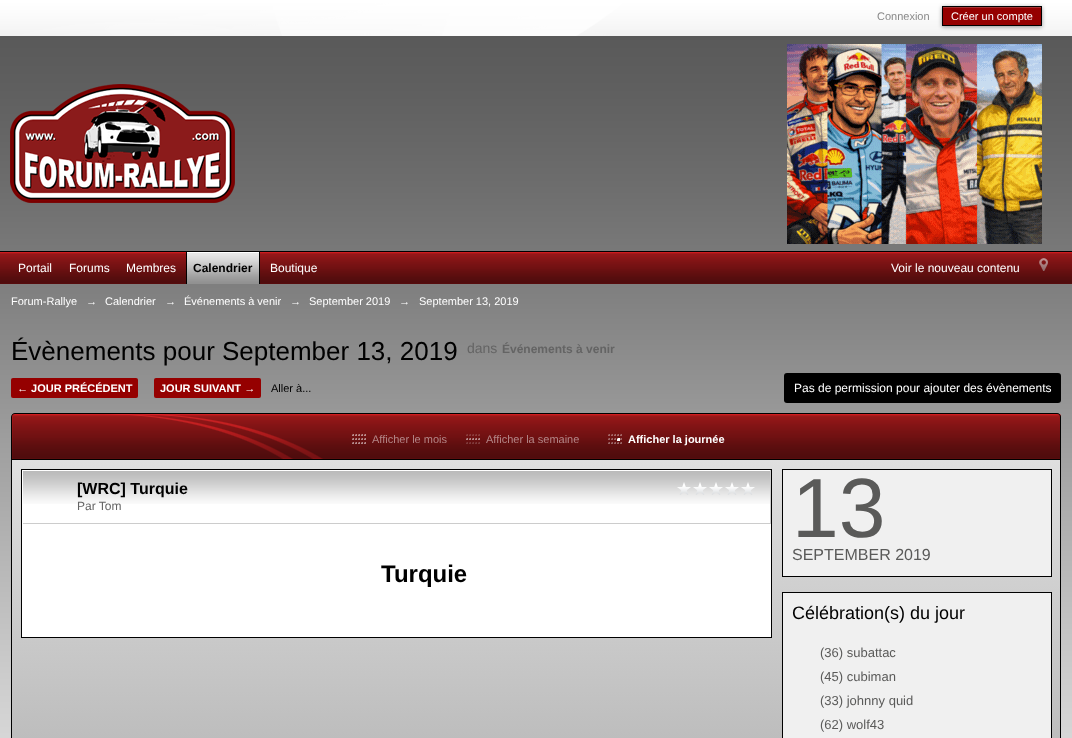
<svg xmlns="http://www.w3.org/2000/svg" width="1072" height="738">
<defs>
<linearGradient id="g1" gradientUnits="userSpaceOnUse" x1="12" y1="460" x2="12" y2="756"><stop offset="0" stop-color="#dfdfdf"/><stop offset="1" stop-color="#bbb"/></linearGradient>
</defs>
<rect width="100%" height="100%" fill="#fff"/>
<image x="0" y="36" width="1072" height="702" href="media/1.png"/>
<image x="0" y="0" width="1072" height="36" href="media/2.png"/>
<text x="877" y="20" style="font-family:Liberation Sans;font-size:11px;fill:#888">Connexion</text>
<rect x="942" y="7" width="100" height="20" fill="#00000066" filter="blur(2px)"/>
<rect x="943" y="8" width="98" height="17" fill="#950000"/>
<rect x="943" y="7" width="98" height="1" fill="#a33"/>
<rect x="942.5" y="6.5" width="99" height="19" fill="none" stroke="#000"/>
<text x="951" y="20" style="font-family:Liberation Sans;font-size:11px;fill:#fff">Créer un compte</text>
<image x="10" y="84" width="225" height="119" href="media/3.png"/>
<image x="787" y="44" width="255" height="200" href="media/4.png"/>
<image x="0" y="252" width="1072" height="32" href="media/5.png"/>
<rect y="251" width="1072" height="1" fill="#000"/>
<text x="18" y="272" style="font-family:Liberation Sans;font-size:12px;fill:#fff">Portail</text>
<text x="69" y="272" style="font-family:Liberation Sans;font-size:12px;fill:#fff">Forums</text>
<text x="126" y="272" style="font-family:Liberation Sans;font-size:12px;fill:#fff">Membres</text>
<image x="187" y="252" width="72" height="32" href="media/6.png"/>
<rect x="259" y="252" width="1" height="32" fill="#000"/>
<rect x="186" y="252" width="1" height="32" fill="#000"/>
<text x="193" y="272" style="font-family:Liberation Sans;font-size:12px;font-weight:bold;fill:#000">Calendrier</text>
<text x="270" y="272" style="font-family:Liberation Sans;font-size:12px;fill:#fff">Boutique</text>
<text x="891" y="272" style="font-family:Liberation Sans;font-size:12px;fill:#fff">Voir le nouveau contenu</text>
<image x="1039" y="258" width="9" height="13" href="media/7.png"/>
<text x="11" y="305" style="font-family:Liberation Sans;font-size:11px;fill:#fff">Forum-Rallye</text>
<text x="86" y="305" style="font-family:Liberation Sans;font-size:11px;fill:#fff">→</text>
<text x="105" y="305" style="font-family:Liberation Sans;font-size:11px;fill:#fff">Calendrier</text>
<text x="165" y="305" style="font-family:Liberation Sans;font-size:11px;fill:#fff">→</text>
<text x="184" y="305" style="font-family:Liberation Sans;font-size:11px;fill:#fff">Événements à venir</text>
<text x="290" y="305" style="font-family:Liberation Sans;font-size:11px;fill:#fff">→</text>
<text x="309" y="305" style="font-family:Liberation Sans;font-size:11px;fill:#fff">September 2019</text>
<text x="399" y="305" style="font-family:Liberation Sans;font-size:11px;fill:#fff">→</text>
<text x="419" y="305" style="font-family:Liberation Sans;font-size:11px;fill:#fff">September 13, 2019</text>
<text x="11" y="360" style="font-family:Liberation Sans;font-size:26px;fill:#000">Évènements pour September 13, 2019</text>
<text x="467" y="353" style="font-family:Liberation Sans;font-size:14px;fill:#646464">dans</text>
<text x="502" y="353" style="font-family:Liberation Sans;font-size:12px;font-weight:bold;fill:#646464">Événements à venir</text>
<rect x="11" y="378" width="127" height="20" rx="2" fill="#950000"/>
<text x="17" y="392" style="font-family:Liberation Sans;font-size:11px;font-weight:bold;fill:#fff">← JOUR PRÉCÉDENT</text>
<rect x="154" y="378" width="107" height="20" rx="2" fill="#950000"/>
<text x="160" y="392" style="font-family:Liberation Sans;font-size:11px;font-weight:bold;fill:#fff">JOUR SUIVANT →</text>
<text x="271" y="392" style="font-family:Liberation Sans;font-size:11px;fill:#000">Aller à...</text>
<rect x="784" y="373" width="277" height="30" rx="3" fill="#000"/>
<text x="794" y="392" style="font-family:Liberation Sans;font-size:12px;fill:#fff">Pas de permission pour ajouter des évènements</text>
<image x="12" y="414" width="1049" height="45" href="media/8.png"/>
<path d="M15 413h1042c2 0 4 2 4 4v42h-1050v-42c0-2 2-4 4-4zm0 1h1042c2 0 3 1 3 3v42h-1048v-42c0-2 1-3 3-3z" fill="#000" fill-rule="evenodd"/>
<image x="352" y="434" width="14" height="10" href="media/9.png"/>
<text x="372" y="443" style="font-family:Liberation Sans;font-size:11px;fill:#b48788">Afficher le mois</text>
<image x="466" y="434" width="14" height="10" href="media/10.png"/>
<text x="486" y="443" style="font-family:Liberation Sans;font-size:11px;fill:#b48788">Afficher la semaine</text>
<image x="608" y="434" width="14" height="10" href="media/11.png"/>
<text x="628" y="443" style="font-family:Liberation Sans;font-size:11px;font-weight:bold;fill:#fff">Afficher la journée</text>
<rect x="12" y="460" width="1048" height="278" fill="url(#g1)"/>
<rect x="11.5" y="459.5" width="1049" height="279" fill="none" stroke="#000"/>
<rect x="21.5" y="469.5" width="750" height="168" fill="none" stroke="#000"/>
<rect x="22" y="470" width="749" height="167" fill="#fff"/>
<image x="23" y="471" width="747" height="33" href="media/12.png"/>
<rect x="770" y="470" width="1" height="54" fill="#ccc"/>
<rect x="22" y="523" width="749" height="1" fill="#ccc"/>
<rect x="22" y="523" width="1" height="1" fill="#fff"/>
<text x="77" y="494" style="font-family:Liberation Sans;font-size:16px;font-weight:bold;fill:#000">[WRC] Turquie</text>
<image x="677" y="482" width="14" height="13" href="media/13.png"/>
<image x="693" y="482" width="14" height="13" href="media/13.png"/>
<image x="709" y="482" width="14" height="13" href="media/13.png"/>
<image x="725" y="482" width="14" height="13" href="media/13.png"/>
<image x="741" y="482" width="14" height="13" href="media/13.png"/>
<text x="77" y="510" style="font-family:Liberation Sans;font-size:12px;fill:#646464">Par Tom</text>
<text x="381" y="582" style="font-family:Liberation Sans;font-size:24px;font-weight:bold;fill:#000">Turquie</text>
<rect x="782.5" y="469.5" width="269" height="107" fill="#f0f0f0" stroke="#000"/>
<text x="792" y="537" style="font-family:Liberation Sans;font-size:84px;fill:#5a5a59">13</text>
<text x="792" y="560" style="font-family:Liberation Sans;font-size:16px;fill:#5a5a59">SEPTEMBER 2019</text>
<rect x="782.5" y="592.5" width="269" height="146" fill="#f0f0f0" stroke="#000"/>
<text x="792" y="619" style="font-family:Liberation Sans;font-size:18px;fill:#000">Célébration(s) du jour</text>
<text x="820" y="657" style="font-family:Liberation Sans;font-size:13px;fill:#5a5a59">(36) subattac</text>
<text x="820" y="681" style="font-family:Liberation Sans;font-size:13px;fill:#5a5a59">(45) cubiman</text>
<text x="820" y="705" style="font-family:Liberation Sans;font-size:13px;fill:#5a5a59">(33) johnny quid</text>
<text x="820" y="729" style="font-family:Liberation Sans;font-size:13px;fill:#5a5a59">(62) wolf43</text>
</svg>
